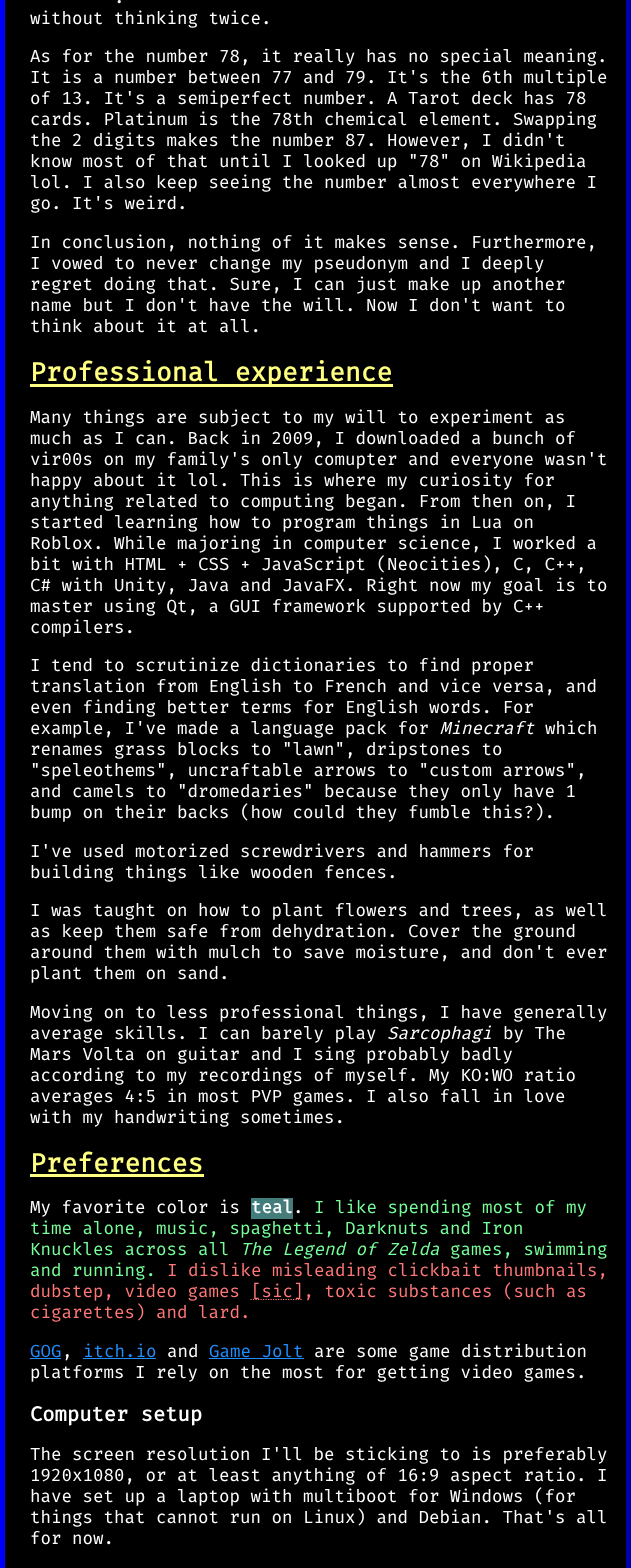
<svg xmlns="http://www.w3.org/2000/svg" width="631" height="1568">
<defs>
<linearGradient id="g1" gradientUnits="userSpaceOnUse" x1="251" y1="1208" x2="293" y2="1208"><stop offset="0" stop-color="#3f7f7f"/><stop offset="1" stop-color="#487b77"/></linearGradient>
</defs>
<rect width="100%" height="100%" fill="#000"/>
<path d="M631-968v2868l-5-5v-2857z" fill="#00a"/>
<path d="M0 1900v-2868l5 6v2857z" fill="#00f"/>
<text x="114" y="3" style="font-family:Fira Mono;font-size:17.5px;fill:#fff">.</text>
<text x="30" y="24" style="font-family:Fira Mono;font-size:17.5px;fill:#fff">without thinking twice.</text>
<text x="30" y="62" style="font-family:Fira Mono;font-size:17.5px;fill:#fff">As for the number 78, it really has no special meaning.</text>
<text x="30" y="83" style="font-family:Fira Mono;font-size:17.5px;fill:#fff">It is a number between 77 and 79. It's the 6th multiple</text>
<text x="30" y="104" style="font-family:Fira Mono;font-size:17.5px;fill:#fff">of 13. It's a semiperfect number. A Tarot deck has 78</text>
<text x="30" y="125" style="font-family:Fira Mono;font-size:17.5px;fill:#fff">cards. Platinum is the 78th chemical element. Swapping</text>
<text x="30" y="146" style="font-family:Fira Mono;font-size:17.5px;fill:#fff">the 2 digits makes the number 87. However, I didn't</text>
<text x="30" y="167" style="font-family:Fira Mono;font-size:17.5px;fill:#fff">know most of that until I looked up "78" on Wikipedia</text>
<text x="30" y="188" style="font-family:Fira Mono;font-size:17.5px;fill:#fff">lol. I also keep seeing the number almost everywhere I</text>
<text x="30" y="209" style="font-family:Fira Mono;font-size:17.5px;fill:#fff">go. It's weird.</text>
<text x="30" y="248" style="font-family:Fira Mono;font-size:17.5px;fill:#fff">In conclusion, nothing of it makes sense. Furthermore,</text>
<text x="30" y="269" style="font-family:Fira Mono;font-size:17.5px;fill:#fff">I vowed to never change my pseudonym and I deeply</text>
<text x="30" y="290" style="font-family:Fira Mono;font-size:17.5px;fill:#fff">regret doing that. Sure, I can just make up another</text>
<text x="30" y="311" style="font-family:Fira Mono;font-size:17.5px;fill:#fff">name but I don't have the will. Now I don't want to</text>
<text x="30" y="332" style="font-family:Fira Mono;font-size:17.5px;fill:#fff">think about it at all.</text>
<rect x="30" y="384" width="363" height="3" fill="#ffff80"/>
<text x="30" y="381" style="font-family:Fira Mono;font-size:26.25px;font-weight:bold;fill:#ffff80">Professional experience</text>
<text x="30" y="423" style="font-family:Fira Mono;font-size:17.5px;fill:#fff">Many things are subject to my will to experiment as</text>
<text x="30" y="444" style="font-family:Fira Mono;font-size:17.5px;fill:#fff">much as I can. Back in 2009, I downloaded a bunch of</text>
<text x="30" y="465" style="font-family:Fira Mono;font-size:17.5px;fill:#fff">vir00s on my family's only comupter and everyone wasn't</text>
<text x="30" y="486" style="font-family:Fira Mono;font-size:17.5px;fill:#fff">happy about it lol. This is where my curiosity for</text>
<text x="30" y="507" style="font-family:Fira Mono;font-size:17.5px;fill:#fff">anything related to computing began. From then on, I</text>
<text x="30" y="528" style="font-family:Fira Mono;font-size:17.5px;fill:#fff">started learning how to program things in Lua on</text>
<text x="30" y="549" style="font-family:Fira Mono;font-size:17.5px;fill:#fff">Roblox. While majoring in computer science, I worked a</text>
<text x="30" y="570" style="font-family:Fira Mono;font-size:17.5px;fill:#fff">bit with HTML + CSS + JavaScript (Neocities), C, C++,</text>
<text x="30" y="591" style="font-family:Fira Mono;font-size:17.5px;fill:#fff">C# with Unity, Java and JavaFX. Right now my goal is to</text>
<text x="30" y="612" style="font-family:Fira Mono;font-size:17.5px;fill:#fff">master using Qt, a GUI framework supported by C++</text>
<text x="30" y="633" style="font-family:Fira Mono;font-size:17.5px;fill:#fff">compilers.</text>
<text x="30" y="671" style="font-family:Fira Mono;font-size:17.5px;fill:#fff">I tend to scrutinize dictionaries to find proper</text>
<text x="30" y="692" style="font-family:Fira Mono;font-size:17.5px;fill:#fff">translation from English to French and vice versa, and</text>
<text x="30" y="713" style="font-family:Fira Mono;font-size:17.5px;fill:#fff">even finding better terms for English words. For</text>
<text x="30" y="734" style="font-family:Fira Mono;font-size:17.5px;fill:#fff">example, I've made a language pack for</text>
<text x="440" y="734" style="font-family:Fira Mono;font-size:17.5px;font-style:italic;fill:#fff">Minecraft</text>
<text x="545" y="734" style="font-family:Fira Mono;font-size:17.5px;fill:#fff">which</text>
<text x="30" y="755" style="font-family:Fira Mono;font-size:17.5px;fill:#fff">renames grass blocks to "lawn", dripstones to</text>
<text x="30" y="776" style="font-family:Fira Mono;font-size:17.5px;fill:#fff">"speleothems", uncraftable arrows to "custom arrows",</text>
<text x="30" y="797" style="font-family:Fira Mono;font-size:17.5px;fill:#fff">and camels to "dromedaries" because they only have 1</text>
<text x="30" y="818" style="font-family:Fira Mono;font-size:17.5px;fill:#fff">bump on their backs (how could they fumble this?).</text>
<text x="30" y="857" style="font-family:Fira Mono;font-size:17.5px;fill:#fff">I've used motorized screwdrivers and hammers for</text>
<text x="30" y="878" style="font-family:Fira Mono;font-size:17.5px;fill:#fff">building things like wooden fences.</text>
<text x="30" y="916" style="font-family:Fira Mono;font-size:17.5px;fill:#fff">I was taught on how to plant flowers and trees, as well</text>
<text x="30" y="937" style="font-family:Fira Mono;font-size:17.5px;fill:#fff">as keep them safe from dehydration. Cover the ground</text>
<text x="30" y="958" style="font-family:Fira Mono;font-size:17.5px;fill:#fff">around them with mulch to save moisture, and don't ever</text>
<text x="30" y="979" style="font-family:Fira Mono;font-size:17.5px;fill:#fff">plant them on sand.</text>
<text x="30" y="1018" style="font-family:Fira Mono;font-size:17.5px;fill:#fff">Moving on to less professional things, I have generally</text>
<text x="30" y="1039" style="font-family:Fira Mono;font-size:17.5px;fill:#fff">average skills. I can barely play</text>
<text x="387" y="1039" style="font-family:Fira Mono;font-size:17.5px;font-style:italic;fill:#fff">Sarcophagi</text>
<text x="503" y="1039" style="font-family:Fira Mono;font-size:17.5px;fill:#fff">by The</text>
<text x="30" y="1060" style="font-family:Fira Mono;font-size:17.5px;fill:#fff">Mars Volta on guitar and I sing probably badly</text>
<text x="30" y="1081" style="font-family:Fira Mono;font-size:17.5px;fill:#fff">according to my recordings of myself. My KO:WO ratio</text>
<text x="30" y="1102" style="font-family:Fira Mono;font-size:17.5px;fill:#fff">averages 4:5 in most PVP games. I also fall in love</text>
<text x="30" y="1123" style="font-family:Fira Mono;font-size:17.5px;fill:#fff">with my handwriting sometimes.</text>
<text x="30" y="1172" style="font-family:Fira Mono;font-size:26.25px;font-weight:bold;fill:#ffff80">Preferences</text>
<rect x="30" y="1174" width="174" height="3" fill="#ffff80"/>
<text x="30" y="1213" style="font-family:Fira Mono;font-size:17.5px;fill:#fff">My favorite color is</text>
<rect x="251" y="1198" width="42" height="21" fill="url(#g1)"/>
<text x="251" y="1213" style="font-family:Fira Mono;font-size:17.5px;font-weight:bold;fill:#fff">teal</text>
<text x="293" y="1213" style="font-family:Fira Mono;font-size:17.5px;fill:#fff">.</text>
<text x="314" y="1213" style="font-family:Fira Mono;font-size:17.5px;fill:#7f9">I like spending most of my</text>
<text x="30" y="1234" style="font-family:Fira Mono;font-size:17.5px;fill:#7f9">time alone, music, spaghetti, Darknuts and Iron</text>
<text x="30" y="1255" style="font-family:Fira Mono;font-size:17.5px;fill:#7f9">Knuckles across all</text>
<text x="240" y="1255" style="font-family:Fira Mono;font-size:17.5px;font-style:italic;fill:#7f9">The Legend of Zelda</text>
<text x="450" y="1255" style="font-family:Fira Mono;font-size:17.5px;fill:#7f9">games, swimming</text>
<text x="30" y="1276" style="font-family:Fira Mono;font-size:17.5px;fill:#7f9">and running.</text>
<text x="167" y="1276" style="font-family:Fira Mono;font-size:17.5px;fill:#f77">I dislike misleading clickbait thumbnails,</text>
<text x="30" y="1297" style="font-family:Fira Mono;font-size:17.5px;fill:#f77">dubstep, video games</text>
<path d="M250.5 1299.5h52.5" fill="none" stroke="#f77" stroke-width="1.2" stroke-dasharray="1.25 1.25"/>
<text x="251" y="1297" style="font-family:Fira Mono;font-size:17.5px;fill:#f77">[sic], toxic substances (such as</text>
<text x="30" y="1318" style="font-family:Fira Mono;font-size:17.5px;fill:#f77">cigarettes) and lard.</text>
<text x="30" y="1357" style="font-family:Fira Mono;font-size:17.5px;fill:#1f8fff">GOG</text>
<rect x="30" y="1358" width="31" height="1" fill="#1f8fff"/>
<text x="62" y="1357" style="font-family:Fira Mono;font-size:17.5px;fill:#fff">,</text>
<text x="83" y="1357" style="font-family:Fira Mono;font-size:17.5px;fill:#1f8fff">itch.io</text>
<rect x="83" y="1358" width="73" height="1" fill="#1f8fff"/>
<text x="167" y="1357" style="font-family:Fira Mono;font-size:17.5px;fill:#fff">and</text>
<text x="209" y="1357" style="font-family:Fira Mono;font-size:17.5px;fill:#1f8fff">Game Jolt</text>
<rect x="209" y="1358" width="95" height="1" fill="#1f8fff"/>
<text x="314" y="1357" style="font-family:Fira Mono;font-size:17.5px;fill:#fff">are some game distribution</text>
<text x="30" y="1378" style="font-family:Fira Mono;font-size:17.5px;fill:#fff">platforms I rely on the most for getting video games.</text>
<text x="30" y="1421" style="font-family:Fira Mono;font-size:20.5px;font-weight:bold;fill:#fff">Computer setup</text>
<text x="30" y="1460" style="font-family:Fira Mono;font-size:17.5px;fill:#fff">The screen resolution I'll be sticking to is preferably</text>
<text x="30" y="1481" style="font-family:Fira Mono;font-size:17.5px;fill:#fff">1920x1080, or at least anything of 16:9 aspect ratio. I</text>
<text x="30" y="1502" style="font-family:Fira Mono;font-size:17.5px;fill:#fff">have set up a laptop with multiboot for Windows (for</text>
<text x="30" y="1523" style="font-family:Fira Mono;font-size:17.5px;fill:#fff">things that cannot run on Linux) and Debian. That's all</text>
<text x="30" y="1544" style="font-family:Fira Mono;font-size:17.5px;fill:#fff">for now.</text>
</svg>
